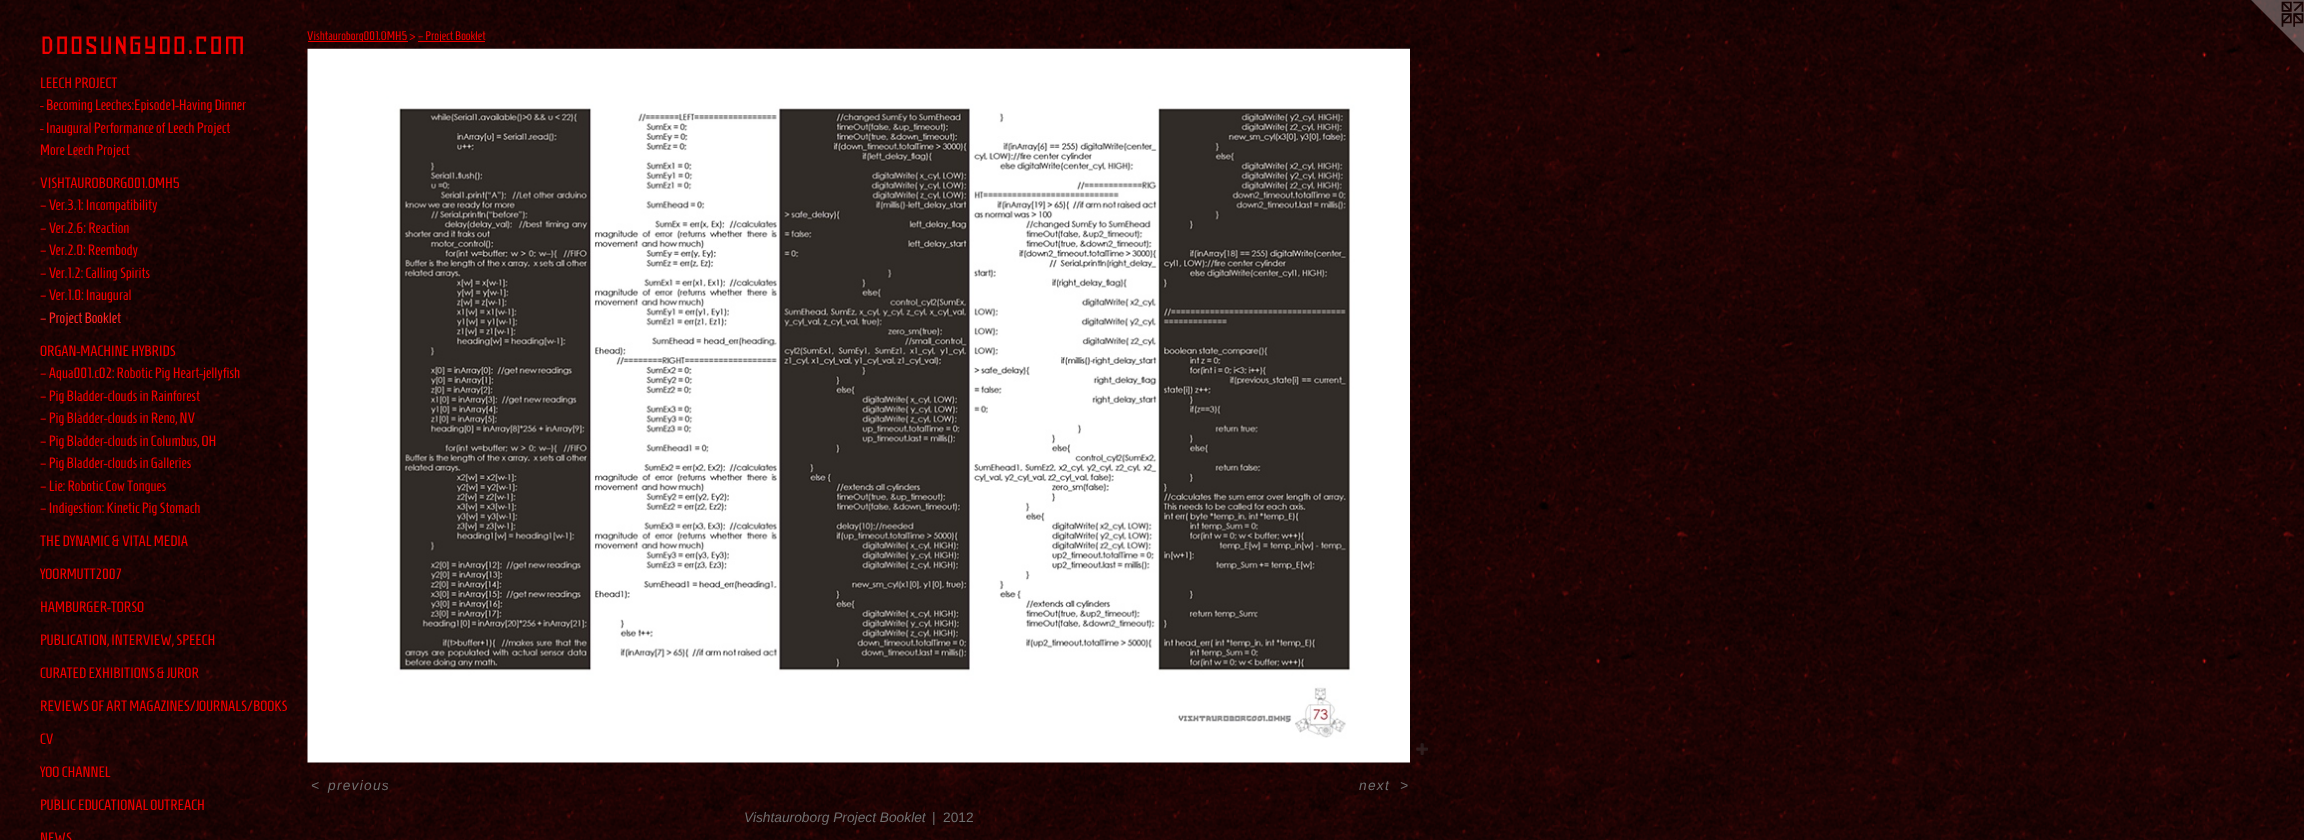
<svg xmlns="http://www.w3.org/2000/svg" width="2304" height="840">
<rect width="100%" height="100%" fill="#fff"/>
<image x="0" y="0" width="2304" height="840" href="media/1.png"/>
<text x="40" y="54" style="font-family:Geo;font-size:31.25px;fill:#f00000">DOOSUNGYOO.COM</text>
<text x="40" y="88" style="font-family:Homenaje;font-size:15px;fill:#f00000">LEECH PROJECT</text>
<text x="40" y="110" style="font-family:Homenaje;font-size:15px;fill:#f00000">- Becoming Leeches:Episode1-Having Dinner</text>
<text x="40" y="133" style="font-family:Homenaje;font-size:15px;fill:#f00000">- Inaugural Performance of Leech Project</text>
<text x="40" y="155" style="font-family:Homenaje;font-size:15px;fill:#f00000">More Leech Project</text>
<text x="40" y="188" style="font-family:Homenaje;font-size:15px;fill:#f00000">VISHTAUROBORG001.OMH5</text>
<text x="40" y="210" style="font-family:Homenaje;font-size:15px;fill:#f00000">– Ver.3.1: Incompatibility</text>
<text x="40" y="233" style="font-family:Homenaje;font-size:15px;fill:#f00000">– Ver.2.6: Reaction</text>
<text x="40" y="255" style="font-family:Homenaje;font-size:15px;fill:#f00000">– Ver.2.0: Reembody</text>
<text x="40" y="278" style="font-family:Homenaje;font-size:15px;fill:#f00000">– Ver.1.2: Calling Spirits</text>
<text x="40" y="300" style="font-family:Homenaje;font-size:15px;fill:#f00000">– Ver.1.0: Inaugural</text>
<text x="40" y="323" style="font-family:Homenaje;font-size:15px;fill:#ff2424">– Project Booklet</text>
<text x="40" y="356" style="font-family:Homenaje;font-size:15px;fill:#f00000">ORGAN-MACHINE HYBRIDS</text>
<text x="40" y="378" style="font-family:Homenaje;font-size:15px;fill:#f00000">– Aqua001.c02: Robotic Pig Heart-jellyfish</text>
<text x="40" y="401" style="font-family:Homenaje;font-size:15px;fill:#f00000">– Pig Bladder-clouds in Rainforest</text>
<text x="40" y="423" style="font-family:Homenaje;font-size:15px;fill:#f00000">– Pig Bladder-clouds in Reno, NV</text>
<text x="40" y="446" style="font-family:Homenaje;font-size:15px;fill:#f00000">– Pig Bladder-clouds in Columbus, OH</text>
<text x="40" y="468" style="font-family:Homenaje;font-size:15px;fill:#f00000">– Pig Bladder-clouds in Galleries</text>
<text x="40" y="491" style="font-family:Homenaje;font-size:15px;fill:#f00000">– Lie: Robotic Cow Tongues</text>
<text x="40" y="513" style="font-family:Homenaje;font-size:15px;fill:#f00000">– Indigestion: Kinetic Pig Stomach</text>
<text x="40" y="546" style="font-family:Homenaje;font-size:15px;fill:#f00000">THE DYNAMIC &amp; VITAL MEDIA</text>
<text x="40" y="579" style="font-family:Homenaje;font-size:15px;fill:#f00000">YOORMUTT2007</text>
<text x="40" y="612" style="font-family:Homenaje;font-size:15px;fill:#f00000">HAMBURGER-TORSO</text>
<text x="40" y="645" style="font-family:Homenaje;font-size:15px;fill:#f00000">PUBLICATION, INTERVIEW, SPEECH</text>
<text x="40" y="678" style="font-family:Homenaje;font-size:15px;fill:#f00000">CURATED EXHIBITIONS &amp; JUROR</text>
<text x="40" y="711" style="font-family:Homenaje;font-size:15px;fill:#f00000">REVIEWS OF ART MAGAZINES/JOURNALS/BOOKS</text>
<text x="40" y="744" style="font-family:Homenaje;font-size:15px;fill:#f00000">CV</text>
<text x="40" y="777" style="font-family:Homenaje;font-size:15px;fill:#f00000">YOO CHANNEL</text>
<text x="40" y="810" style="font-family:Homenaje;font-size:15px;fill:#f00000">PUBLIC EDUCATIONAL OUTREACH</text>
<text x="40" y="843" style="font-family:Homenaje;font-size:15px;fill:#f00000">NEWS</text>
<rect x="308" y="41" width="100" height="1" fill="#f00000"/>
<text x="307" y="40" style="font-family:Homenaje;font-size:12.5px;fill:#f00000">Vishtauroborg001.OMH5 &gt;</text>
<rect x="418" y="41" width="67" height="1" fill="#f00000"/>
<text x="418" y="40" style="font-family:Homenaje;font-size:12.5px;fill:#f00000">– Project Booklet</text>
<image x="307" y="48" width="1103" height="715" href="media/2.png"/>
<image x="1416" y="743" width="12" height="12" href="media/3.png"/>
<text x="311" y="790" style="font-family:Liberation Sans;font-size:13.75px;font-style:italic;letter-spacing:1.25px;fill:#707070">&lt;</text>
<text x="328" y="790" style="font-family:Liberation Sans;font-size:13.75px;font-style:italic;letter-spacing:1.25px;fill:#707070">previous</text>
<text x="1359" y="790" style="font-family:Liberation Sans;font-size:13.75px;font-style:italic;letter-spacing:1.25px;fill:#707070">next</text>
<text x="1400" y="790" style="font-family:Liberation Sans;font-size:13.75px;font-style:italic;letter-spacing:1.25px;fill:#707070">&gt;</text>
<text x="744" y="822" style="font-family:Liberation Sans;font-size:13.75px;font-style:italic;fill:#707070">Vishtauroborg Project Booklet</text>
<text x="932" y="822" style="font-family:Liberation Sans;font-size:13.75px;fill:#707070">|</text>
<text x="943" y="822" style="font-family:Liberation Sans;font-size:13.75px;fill:#707070">2012</text>
<image x="2251" y="0" width="53" height="53" href="media/4.png"/>
</svg>
